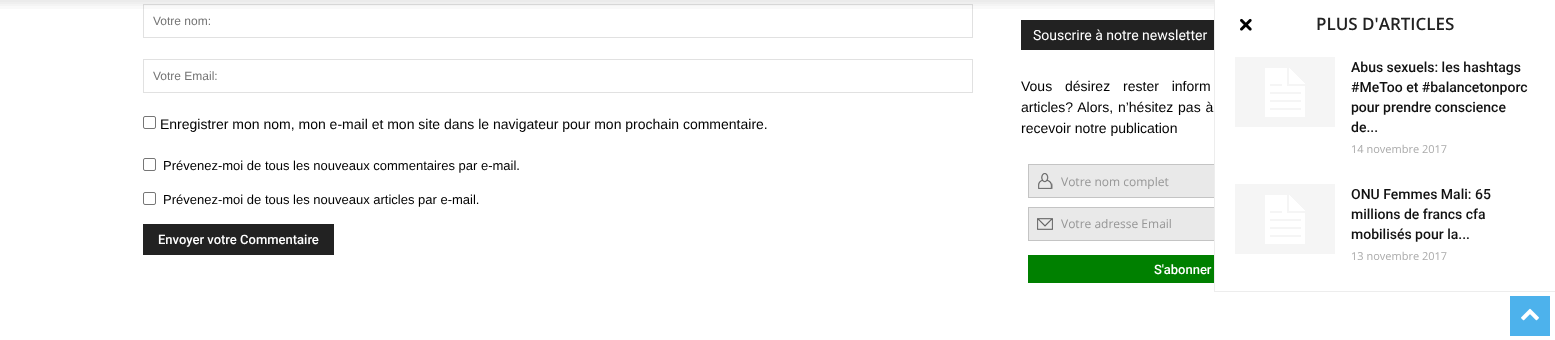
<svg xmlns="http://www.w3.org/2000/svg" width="1555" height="340">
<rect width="100%" height="100%" fill="#fff"/>
<rect x="143.5" y="4.5" width="829" height="33" fill="none" stroke="#e1e1e1"/>
<image x="0" y="0" width="1214" height="9" href="media/1.png"/>
<text x="153" y="25" style="font-family:Liberation Sans;font-size:12px;fill:#757575">Votre nom:</text>
<rect x="143.5" y="59.5" width="829" height="33" fill="none" stroke="#e1e1e1"/>
<text x="153" y="80" style="font-family:Liberation Sans;font-size:12px;fill:#757575">Votre Email:</text>
<rect x="143.5" y="116.5" width="12" height="12" rx="1.5" fill="none" stroke="#767676"/>
<text x="160" y="129" style="font-family:Liberation Sans;font-size:14px;fill:#000">Enregistrer mon nom, mon e-mail et mon site dans le navigateur pour mon prochain commentaire.</text>
<rect x="143.5" y="158.5" width="12" height="12" rx="1.5" fill="none" stroke="#767676"/>
<text x="163" y="170" style="font-family:Liberation Sans;font-size:13px;fill:#000">Prévenez-moi de tous les nouveaux commentaires par e-mail.</text>
<rect x="143.5" y="192.5" width="12" height="12" rx="1.5" fill="none" stroke="#767676"/>
<text x="163" y="204" style="font-family:Liberation Sans;font-size:13px;fill:#000">Prévenez-moi de tous les nouveaux articles par e-mail.</text>
<rect x="143" y="224" width="191" height="31" fill="#222"/>
<text x="158" y="244" style="font-family:Roboto;font-size:13px;font-weight:500;fill:#fff">Envoyer votre Commentaire</text>
<rect x="1021" y="20" width="193" height="30" fill="#222"/>
<text x="1033" y="40" style="font-family:Roboto;font-size:14px;fill:#fff">Souscrire à notre newsletter</text>
<text x="1021" y="91" word-spacing="9" style="font-family:Liberation Sans;font-size:14px;fill:#000">Vous désirez rester inform</text>
<text x="1021" y="112" word-spacing="1" style="font-family:Liberation Sans;font-size:14px;fill:#000">articles? Alors, n’hésitez pas à</text>
<text x="1021" y="133" style="font-family:Liberation Sans;font-size:14px;fill:#000">recevoir notre publication</text>
<rect x="1029" y="165" width="185" height="32" fill="#e9e9e9"/>
<image x="1038" y="173" width="15" height="16" href="media/2.png"/>
<rect x="1028.5" y="164.5" width="309" height="33" fill="none" stroke="#c4c4c4"/>
<text x="1061" y="186" style="font-family:Open Sans;font-size:12px;fill:#969696">Votre nom complet</text>
<rect x="1029" y="208" width="185" height="32" fill="#e9e9e9"/>
<image x="1037" y="218" width="16" height="12" href="media/3.png"/>
<rect x="1028.5" y="207.5" width="309" height="33" fill="none" stroke="#c4c4c4"/>
<text x="1061" y="228" style="font-family:Open Sans;font-size:12px;fill:#969696">Votre adresse Email</text>
<rect x="1028" y="255" width="186" height="28" fill="#008000"/>
<text x="1154" y="274" style="font-family:Roboto;font-size:13px;font-weight:500;fill:#fff">S'abonner</text>
<rect x="1215" y="164" width="123" height="77" fill="#fff"/>
<rect x="1214" y="291" width="341" height="1" fill="#ededed"/>
<rect x="1214" width="1" height="292" fill="#ededed"/>
<image x="1240" y="18" width="12" height="13" href="media/4.png"/>
<text x="1316" y="30" style="font-family:Open Sans;font-size:17px;font-weight:600;fill:#222">PLUS D'ARTICLES</text>
<image x="1235" y="57" width="100" height="70" href="media/5.png"/>
<text x="1351" y="72" style="font-family:Roboto;font-size:14px;font-weight:500;fill:#111">Abus sexuels: les hashtags</text>
<text x="1351" y="92" style="font-family:Roboto;font-size:14px;font-weight:500;fill:#111">#MeToo et #balancetonporc</text>
<text x="1351" y="112" style="font-family:Roboto;font-size:14px;font-weight:500;fill:#111">pour prendre conscience</text>
<text x="1351" y="132" style="font-family:Roboto;font-size:14px;font-weight:500;fill:#111">de...</text>
<text x="1351" y="153" style="font-family:Open Sans;font-size:11px;fill:#aaa">14 novembre 2017</text>
<image x="1235" y="184" width="100" height="70" href="media/5.png"/>
<text x="1351" y="199" style="font-family:Roboto;font-size:14px;font-weight:500;fill:#111">ONU Femmes Mali: 65</text>
<text x="1351" y="219" style="font-family:Roboto;font-size:14px;font-weight:500;fill:#111">millions de francs cfa</text>
<text x="1351" y="239" style="font-family:Roboto;font-size:14px;font-weight:500;fill:#111">mobilisés pour la...</text>
<text x="1351" y="260" style="font-family:Open Sans;font-size:11px;fill:#aaa">13 novembre 2017</text>
<rect x="1510" y="296" width="40" height="40" fill="#4db2ec"/>
<image x="1521" y="308" width="18" height="13" href="media/6.png"/>
</svg>
